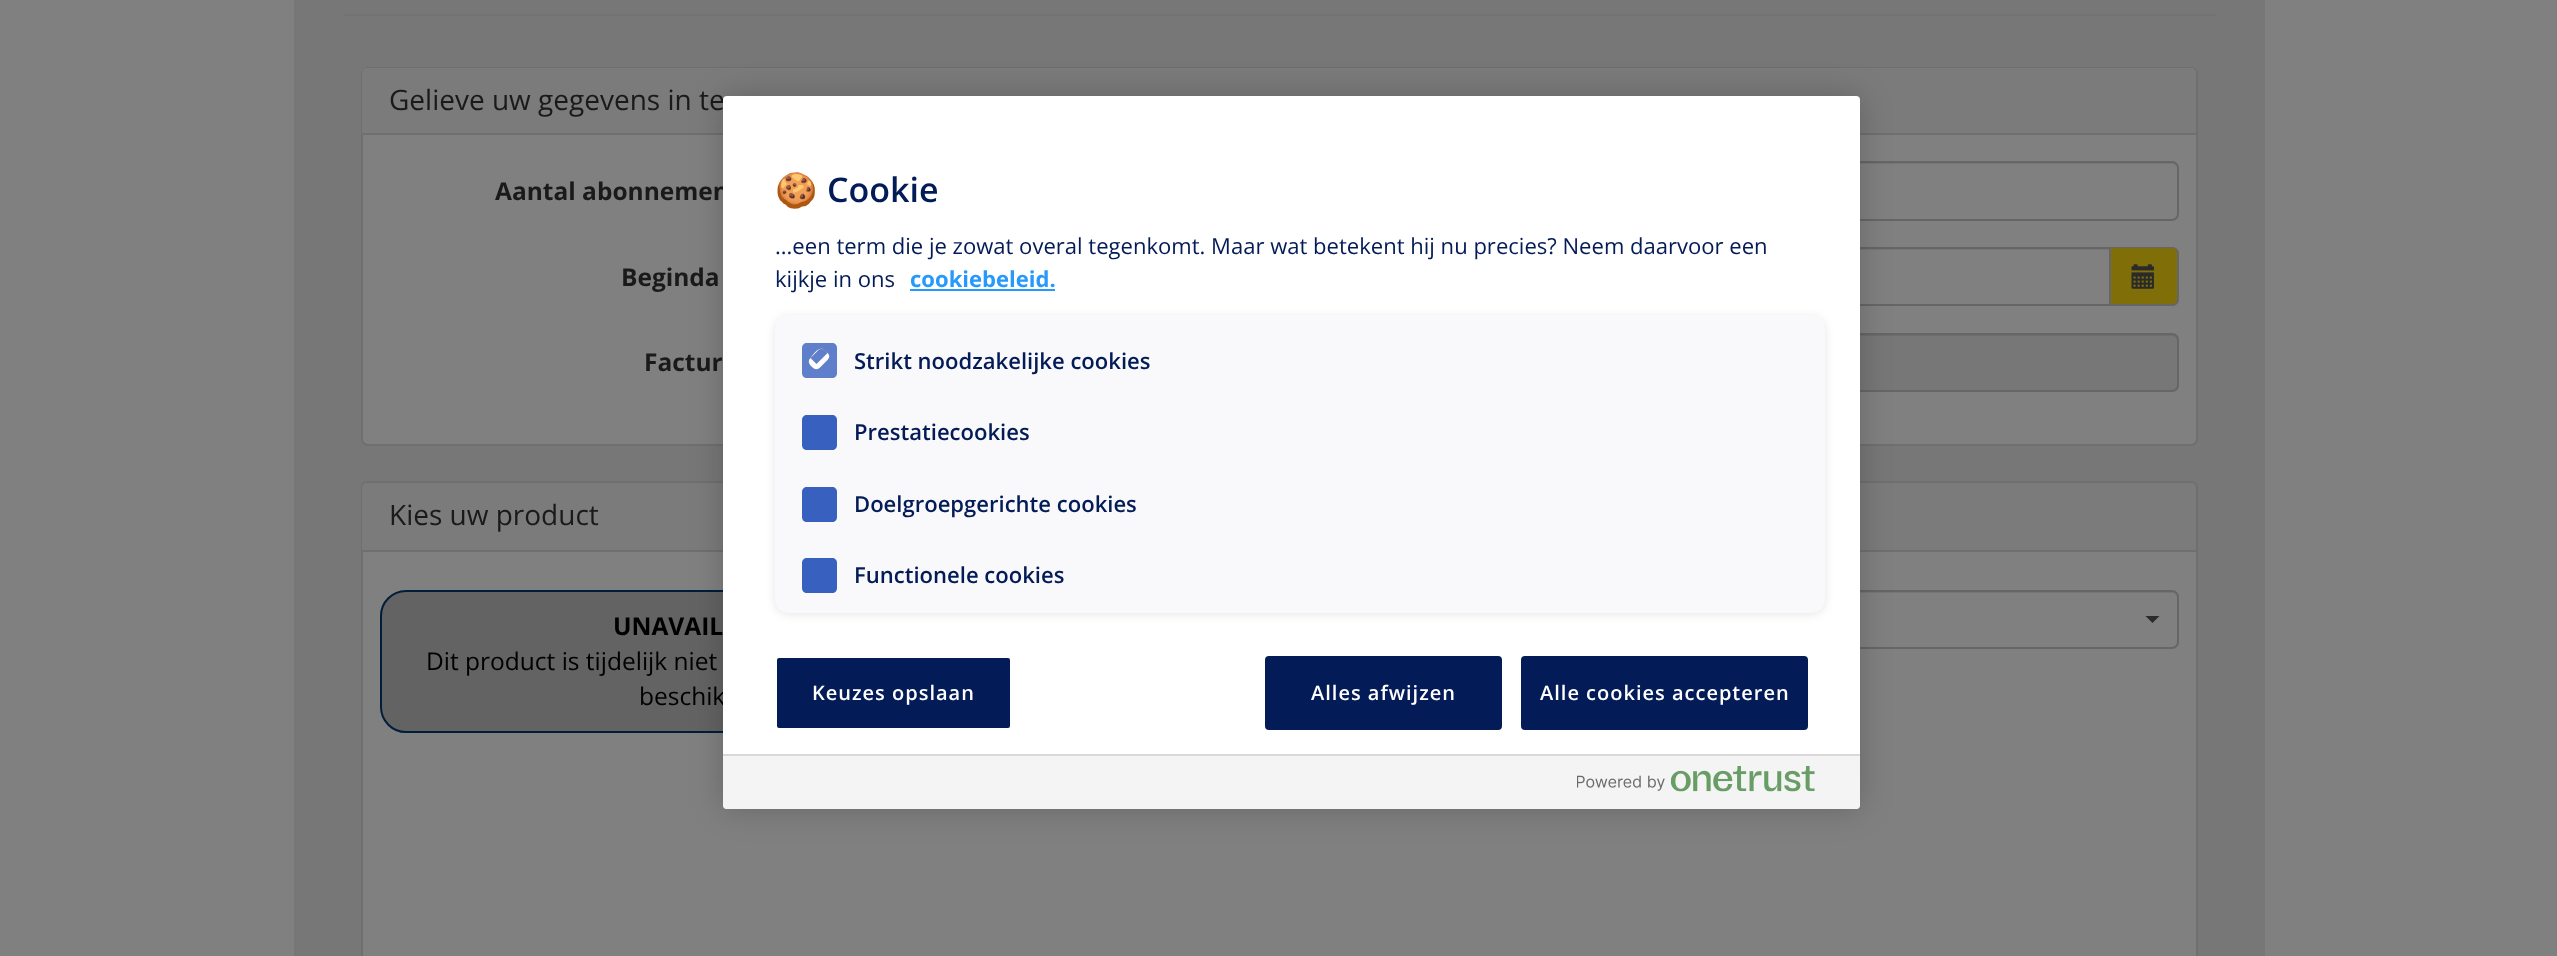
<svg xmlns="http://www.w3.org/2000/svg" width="2557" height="956">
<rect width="100%" height="100%" fill="#808080"/>
<rect x="294" width="1971" height="956" fill="#777"/>
<rect x="343" y="14" width="1873" height="2" fill="#737373"/>
<rect x="362" y="68" width="1835" height="377" rx="6" fill="#808080" stroke="#6f6f6f" stroke-width="2"/>
<path d="M367 68h1824c3 0 5 2 5 5v62h-1834v-62c0-3 2-5 5-5z" fill="#7b7b7b"/>
<rect x="362" y="133" width="1834" height="2" fill="#6f6f6f"/>
<text x="389" y="110" style="font-family:Open Sans;font-size:28px;fill:#1a1a1a">Gelieve uw gegevens in te</text>
<text x="495" y="200" style="font-family:Open Sans;font-size:24.5px;font-weight:bold;fill:#1a1a1a">Aantal abonnemen</text>
<path d="M845 164h1327c3 0 5 3 5 6c0-3-1-7-5-7h-1327c-4 0-5 4-5 7c0-3 2-6 5-6z" fill="#767676"/>
<rect x="839" y="162" width="1339" height="58" rx="6" fill="none" stroke="#666" stroke-width="2"/>
<text x="621" y="286" style="font-family:Open Sans;font-size:24.5px;font-weight:bold;fill:#1a1a1a">Beginda</text>
<path d="M845 250h1264v-1h-1264c-3 0-5 2-5 5v2c0-3 2-6 5-6z" fill="#767676"/>
<path d="M2111 247h61c4 0 7 3 7 7v45c0 4-3 7-7 7h-61z" fill="#806f08"/>
<path d="M2110 247h62c4 0 7 3 7 7v45c0 4-3 7-7 7h-62zm0 1h62c3 0 5 3 5 6v45c0 3-2 5-5 5h-62z" fill="#666" fill-rule="evenodd"/>
<rect x="839" y="248" width="1271" height="57" fill="none" stroke="#666" stroke-width="2"/>
<image x="2131" y="264" width="23" height="25" href="media/1.png"/>
<text x="644" y="371" style="font-family:Open Sans;font-size:24.5px;font-weight:bold;fill:#1a1a1a">Factur</text>
<rect x="838" y="333" width="1341" height="59" rx="7" fill="#777"/>
<path d="M845 336h1327c3 0 5 2 5 5c0-3-1-7-5-7h-1327c-4 0-5 4-5 7c0-3 2-5 5-5z" fill="#6e6e6e"/>
<rect x="839" y="334" width="1339" height="57" rx="6" fill="none" stroke="#666" stroke-width="2"/>
<rect x="362" y="482" width="1835" height="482" rx="6" fill="#808080" stroke="#6f6f6f" stroke-width="2"/>
<path d="M367 483h1824c3 0 5 2 5 5v63h-1834v-63c0-3 2-5 5-5z" fill="#7b7b7b"/>
<rect x="362" y="550" width="1834" height="2" fill="#6f6f6f"/>
<text x="389" y="525" style="font-family:Open Sans;font-size:28px;fill:#1a1a1a">Kies uw product</text>
<rect x="381" y="591" width="421" height="141" rx="25" fill="#636363" stroke="#001d3b" stroke-width="2"/>
<text x="613" y="635" style="font-family:Open Sans;font-size:24.5px;font-weight:bold;fill:#000">UNAVAIL</text>
<text x="426" y="670" style="font-family:Open Sans;font-size:24.5px;fill:#000">Dit product is tijdelijk niet</text>
<text x="639" y="705" style="font-family:Open Sans;font-size:24.5px;fill:#000">beschik</text>
<path d="M845 593h1327c3 0 5 3 5 5c0-3-2-6-5-6h-1327c-3 0-5 3-5 6c0-2 2-5 5-5z" fill="#767676"/>
<rect x="839" y="591" width="1339" height="57" rx="6" fill="none" stroke="#666" stroke-width="2"/>
<path d="M2145.5 616h14l-7 7z" fill="#2b2b2b"/>
<rect x="723" y="96" width="1137" height="713" rx="4" fill="#00000033" filter="blur(16px)"/>
<rect x="723" y="96" width="1137" height="713" rx="4" fill="#fff"/>
<text x="775" y="202" style="font-family:Noto Color Emoji;font-size:34px;font-weight:bold;fill:#031b56">🍪</text>
<text x="827" y="202" style="font-family:Open Sans;font-size:34px;font-weight:600;fill:#031b56">Cookie</text>
<text x="775" y="254" style="font-family:Open Sans;font-size:22.05px;fill:#031b56">...een term die je zowat overal tegenkomt. Maar wat betekent hij nu precies? Neem daarvoor een</text>
<text x="775" y="287" style="font-family:Open Sans;font-size:22.05px;fill:#031b56">kijkje in ons</text>
<text x="910" y="287" style="font-family:Open Sans;font-size:22.05px;font-weight:bold;fill:#2699fb">cookiebeleid.</text>
<rect x="910" y="289" width="145" height="2" fill="#2699fb"/>
<rect x="775" y="317" width="1050" height="297" rx="14" fill="#0000001a" filter="blur(5px)"/>
<rect x="775" y="315" width="1050" height="298" rx="14" fill="#f9f9fc"/>
<path d="M807 343h25c3 0 5 2 5 5v25c0 3-2 5-5 5h-25c-3 0-5-2-5-5v-25c0-3 2-5 5-5z" fill="#5f7fca"/>
<path d="M810.5 358l6 6l11-11l-2.5-2.5c6 5 5.5 7 0 12l-5 5c-3 3-6 1.5-8.5-1c-2.5-2.5-4-5.5-1-8.5zm0 0c3-4 9-13 14.5-7.5c-2-2-5-2-7 0z" fill="#fefefe" fill-rule="evenodd"/>
<text x="854" y="369" style="font-family:Open Sans;font-size:22.05px;font-weight:600;fill:#031b56">Strikt noodzakelijke cookies</text>
<path d="M807 415h25c3 0 5 2 5 5v25c0 3-2 5-5 5h-25c-3 0-5-2-5-5v-25c0-3 2-5 5-5z" fill="#3860be"/>
<text x="854" y="440" style="font-family:Open Sans;font-size:22.05px;font-weight:600;fill:#031b56">Prestatiecookies</text>
<path d="M807 487h25c3 0 5 2 5 5v25c0 3-2 5-5 5h-25c-3 0-5-2-5-5v-25c0-3 2-5 5-5z" fill="#3860be"/>
<text x="854" y="512" style="font-family:Open Sans;font-size:22.05px;font-weight:600;fill:#031b56">Doelgroepgerichte cookies</text>
<path d="M807 558h25c3 0 5 2 5 5v25c0 3-2 5-5 5h-25c-3 0-5-2-5-5v-25c0-3 2-5 5-5z" fill="#3860be"/>
<text x="854" y="583" style="font-family:Open Sans;font-size:22.05px;font-weight:600;fill:#031b56">Functionele cookies</text>
<rect x="776" y="657" width="235" height="72" rx="3" fill="#031b56" stroke="#fff" stroke-width="2"/>
<text x="812" y="700" style="font-family:Open Sans;font-size:20px;font-weight:600;letter-spacing:1px;fill:#fff">Keuzes opslaan</text>
<rect x="1266" y="657" width="235" height="72" rx="3" fill="#031b56" stroke="#031b56" stroke-width="2"/>
<text x="1311" y="700" style="font-family:Open Sans;font-size:20px;font-weight:600;letter-spacing:1px;fill:#fff">Alles afwijzen</text>
<rect x="1522" y="657" width="285" height="72" rx="3" fill="#031b56" stroke="#031b56" stroke-width="2"/>
<text x="1540" y="700" style="font-family:Open Sans;font-size:20px;font-weight:600;letter-spacing:1px;fill:#fff">Alle cookies accepteren</text>
<path d="M723 754h1137v51c0 2-2 4-4 4h-1129c-2 0-4-2-4-4z" fill="#f4f4f4"/>
<rect x="723" y="754" width="1137" height="2" fill="#d8d8d8"/>
<image x="1577" y="766" width="238" height="26" href="media/2.png"/>
</svg>
